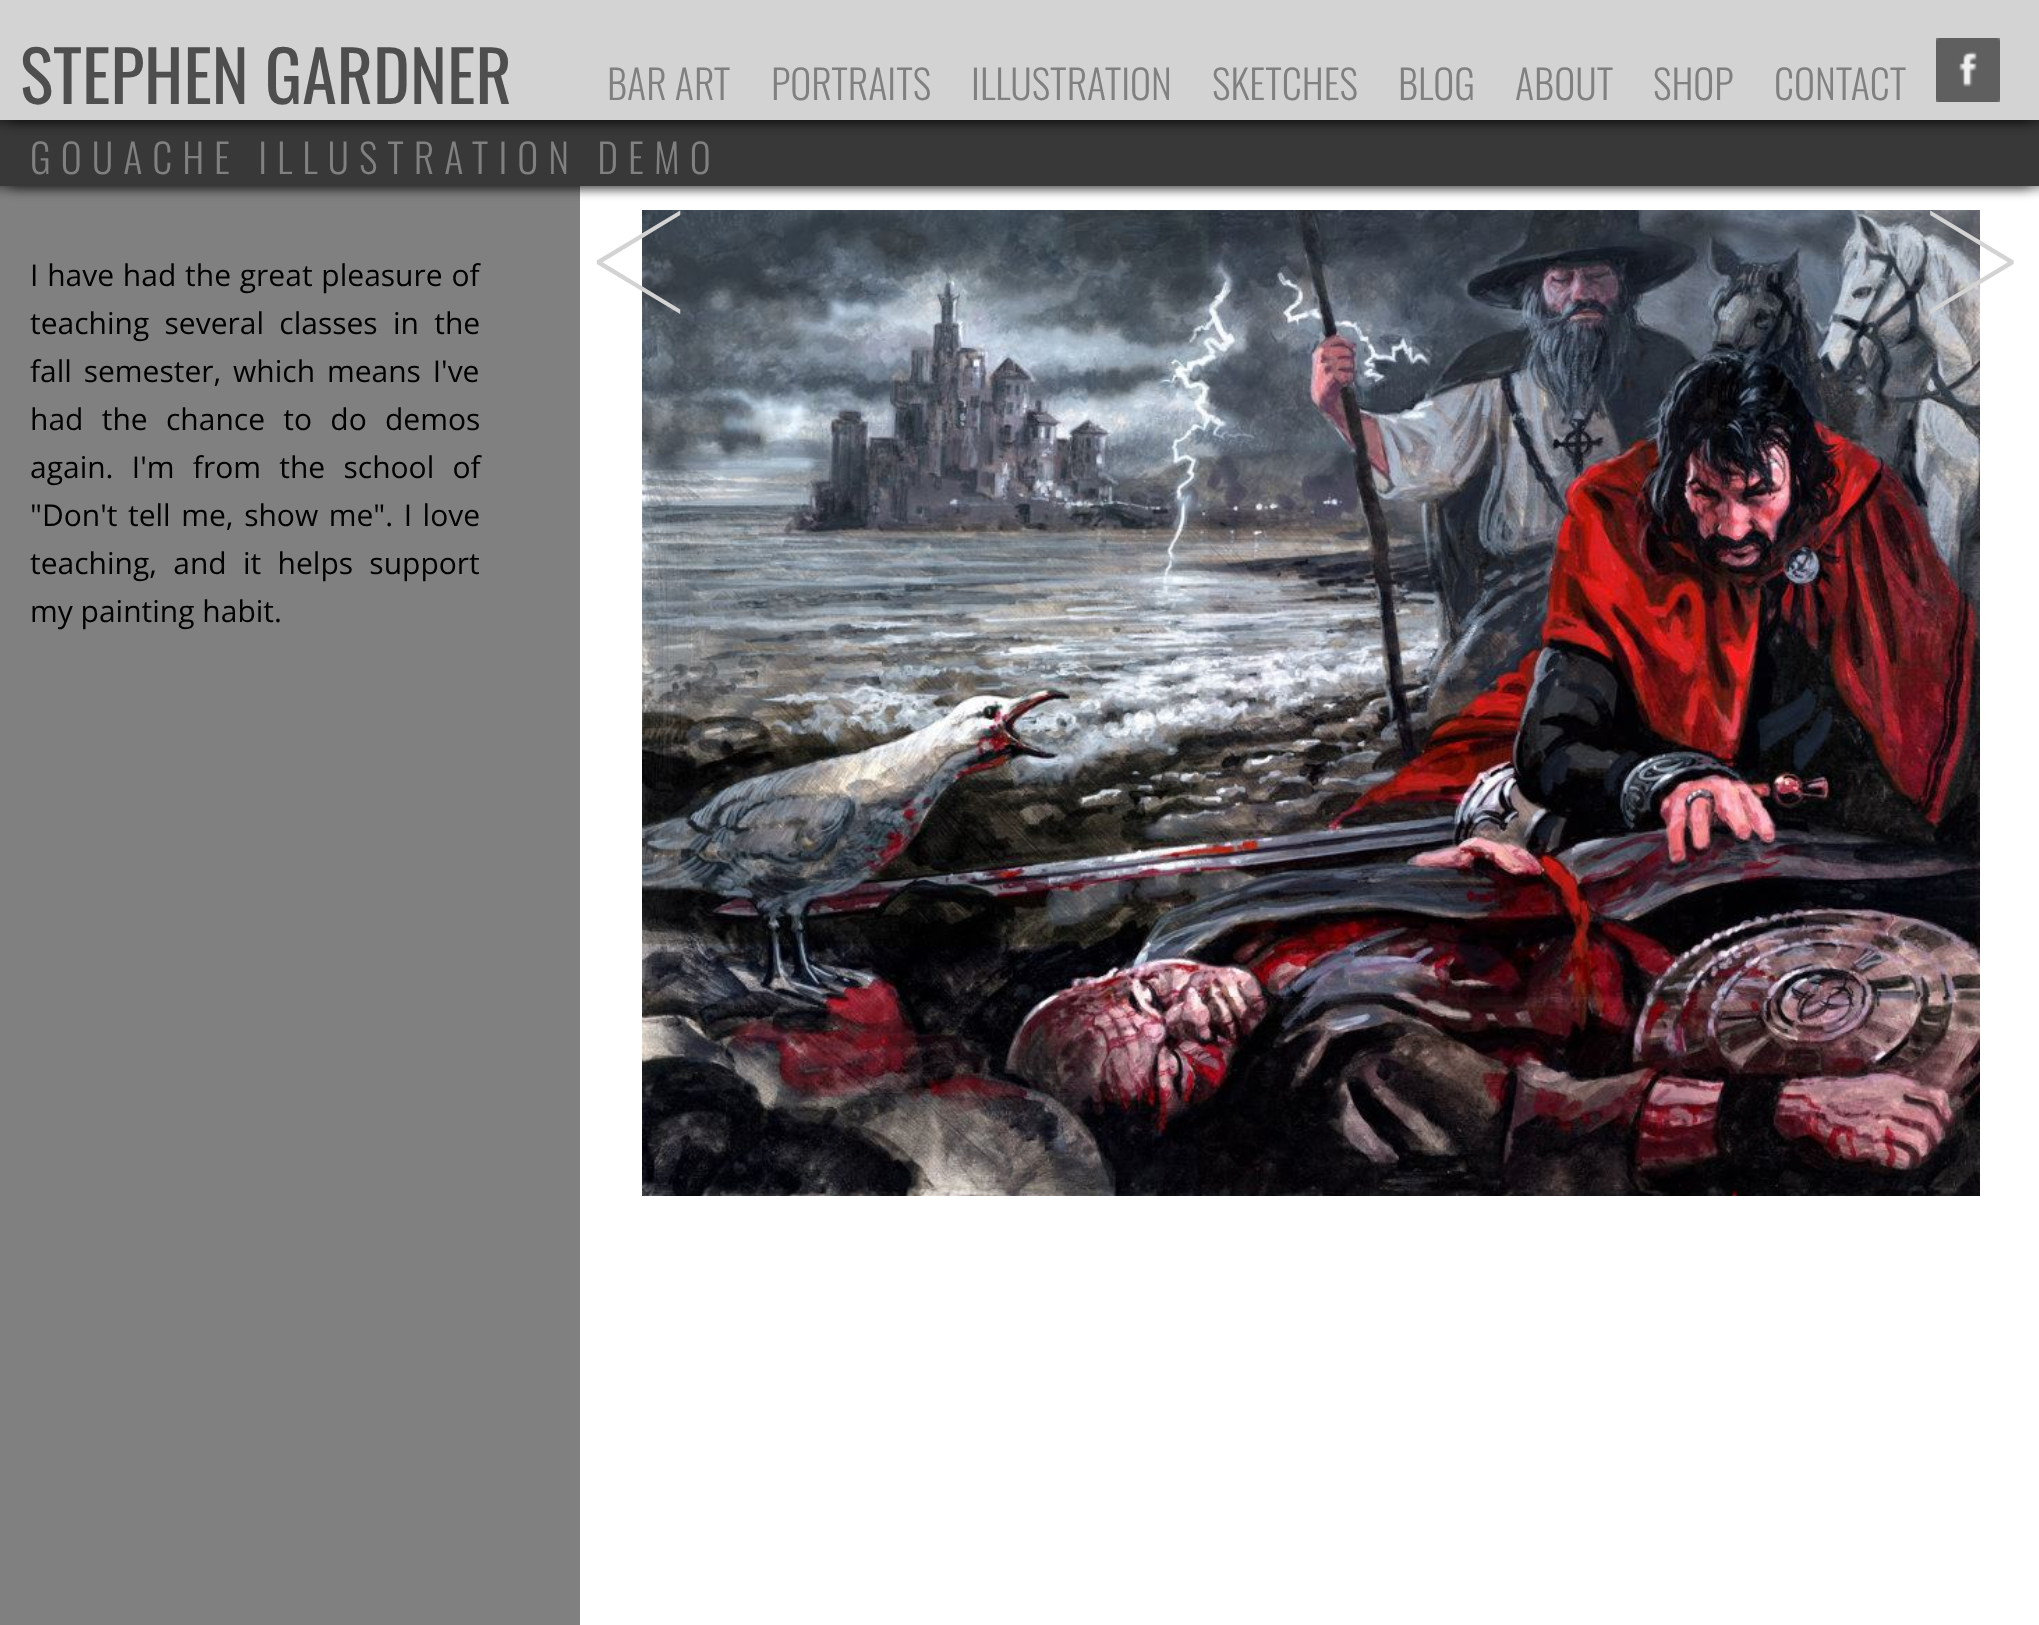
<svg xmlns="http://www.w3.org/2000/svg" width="2039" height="1625">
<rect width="100%" height="100%" fill="#fff"/>
<rect y="186" width="580" height="1439" fill="#808080"/>
<rect x="10" y="122" width="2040" height="66" fill="#00000080" filter="blur(6px)"/>
<rect x="-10" y="122" width="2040" height="66" fill="#00000080" filter="blur(6px)"/>
<rect y="120" width="2039" height="66" fill="#383838"/>
<rect x="10" y="2" width="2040" height="120" fill="#00000080" filter="blur(6px)"/>
<rect x="-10" y="2" width="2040" height="120" fill="#00000080" filter="blur(6px)"/>
<rect width="2039" height="120" fill="#d3d3d3"/>
<text x="20" y="104" style="font-family:Oswald;font-size:70px;fill:#4e4e4e">STEPHEN GARDNER</text>
<text x="607" y="100" style="font-family:Oswald;font-size:40px;font-weight:300;fill:#808080">BAR ART</text>
<text x="771" y="100" style="font-family:Oswald;font-size:40px;font-weight:300;fill:#808080">PORTRAITS</text>
<text x="971" y="100" style="font-family:Oswald;font-size:40px;font-weight:300;fill:#808080">ILLUSTRATION</text>
<text x="1212" y="100" style="font-family:Oswald;font-size:40px;font-weight:300;fill:#808080">SKETCHES</text>
<text x="1398" y="100" style="font-family:Oswald;font-size:40px;font-weight:300;fill:#808080">BLOG</text>
<text x="1515" y="100" style="font-family:Oswald;font-size:40px;font-weight:300;fill:#808080">ABOUT</text>
<text x="1653" y="100" style="font-family:Oswald;font-size:40px;font-weight:300;fill:#808080">SHOP</text>
<text x="1774" y="100" style="font-family:Oswald;font-size:40px;font-weight:300;fill:#808080">CONTACT</text>
<image x="1936" y="38" width="64" height="64" href="media/1.png"/>
<image x="1936" y="38" width="64" height="64" href="media/2.png"/>
<text x="30" y="174" style="font-family:Oswald;font-size:40px;font-weight:300;letter-spacing:10px;fill:#808080">GOUACHE ILLUSTRATION DEMO</text>
<text x="30" y="286" word-spacing="1" style="font-family:Open Sans;font-size:30px;fill:#000">I have had the great pleasure of</text>
<text x="30" y="334" word-spacing="7.5" style="font-family:Open Sans;font-size:30px;fill:#000">teaching several classes in the</text>
<text x="30" y="382" word-spacing="4" style="font-family:Open Sans;font-size:30px;fill:#000">fall semester, which means I've</text>
<text x="30" y="430" word-spacing="10.5" style="font-family:Open Sans;font-size:30px;fill:#000">had the chance to do demos</text>
<text x="30" y="478" word-spacing="10.5" style="font-family:Open Sans;font-size:30px;fill:#000">again. I'm from the school of</text>
<text x="30" y="526" word-spacing="2.75" style="font-family:Open Sans;font-size:30px;fill:#000">"Don't tell me, show me". I love</text>
<text x="30" y="574" word-spacing="8.5" style="font-family:Open Sans;font-size:30px;fill:#000">teaching, and it helps support</text>
<text x="30" y="622" style="font-family:Open Sans;font-size:30px;fill:#000">my painting habit.</text>
<image x="642" y="210" width="1338" height="986" href="media/3.png"/>
<text x="590" y="314" style="font-family:Raleway;font-size:200px;font-weight:100;fill:#d3d3d3">&lt;</text>
<text x="1920" y="314" style="font-family:Raleway;font-size:200px;font-weight:100;fill:#d3d3d3">&gt;</text>
</svg>
